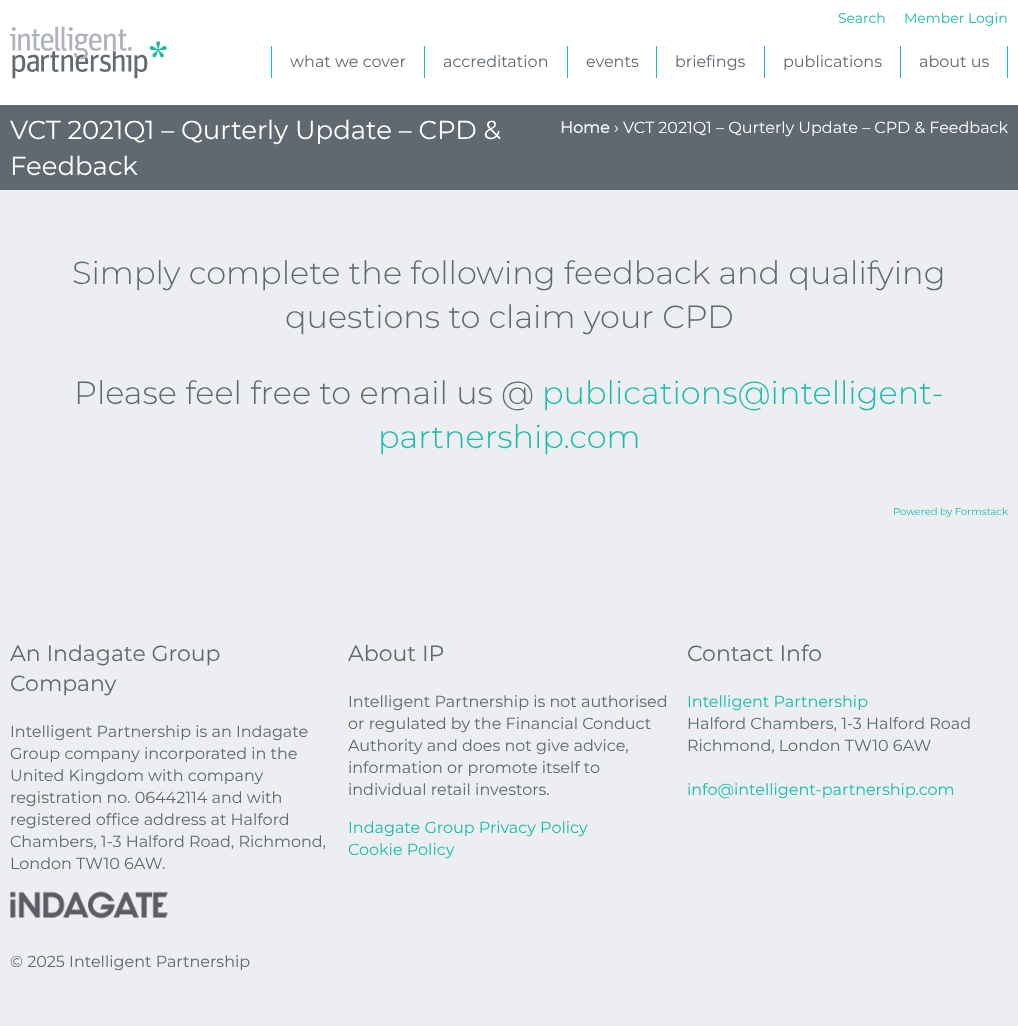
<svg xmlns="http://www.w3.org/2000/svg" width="1018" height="1026">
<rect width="100%" height="100%" fill="#eceef1"/>
<rect width="1018" height="105" fill="#fff"/>
<image x="10" y="26" width="157" height="53" href="media/1.png"/>
<text x="838" y="23" style="font-family:Montserrat;font-size:14px;fill:#1abcad">Search</text>
<text x="904" y="23" style="font-family:Montserrat;font-size:14px;fill:#1abcad">Member Login</text>
<rect x="1007" y="46" width="1" height="32" fill="#1abcad"/>
<rect x="271" y="46" width="1" height="32" fill="#1abcad"/>
<text x="290" y="67" style="font-family:Montserrat;font-size:16px;fill:#606870">what we cover</text>
<rect x="424" y="46" width="1" height="32" fill="#1abcad"/>
<text x="443" y="67" style="font-family:Montserrat;font-size:16px;fill:#606870">accreditation</text>
<rect x="567" y="46" width="1" height="32" fill="#1abcad"/>
<text x="586" y="67" style="font-family:Montserrat;font-size:16px;fill:#606870">events</text>
<rect x="656" y="46" width="1" height="32" fill="#1abcad"/>
<text x="675" y="67" style="font-family:Montserrat;font-size:16px;fill:#606870">briefings</text>
<rect x="764" y="46" width="1" height="32" fill="#1abcad"/>
<text x="783" y="67" style="font-family:Montserrat;font-size:16px;fill:#606870">publications</text>
<rect x="900" y="46" width="1" height="32" fill="#1abcad"/>
<text x="919" y="67" style="font-family:Montserrat;font-size:16px;fill:#606870">about us</text>
<rect y="105" width="1018" height="85" fill="#606870"/>
<text x="10" y="139" style="font-family:Montserrat;font-size:26px;fill:#fff">VCT 2021Q1 – Qurterly Update – CPD &amp;</text>
<text x="10" y="175" style="font-family:Montserrat;font-size:26px;fill:#fff">Feedback</text>
<text x="560" y="133" style="font-family:Montserrat;font-size:16px;font-weight:bold;fill:#eceef1">Home</text>
<text x="614" y="133" style="font-family:Montserrat;font-size:16px;fill:#fff">› VCT 2021Q1 – Qurterly Update – CPD &amp; Feedback</text>
<text x="72" y="284" style="font-family:Montserrat;font-size:32px;font-weight:300;fill:#606870">Simply complete the following feedback and qualifying</text>
<text x="285" y="328" style="font-family:Montserrat;font-size:32px;font-weight:300;fill:#606870">questions to claim your CPD</text>
<text x="74" y="404" style="font-family:Montserrat;font-size:32px;font-weight:300;fill:#606870">Please feel free to email us @</text>
<text x="542" y="404" style="font-family:Montserrat;font-size:32px;font-weight:300;fill:#1abcad">publications@intelligent-</text>
<text x="378" y="448" style="font-family:Montserrat;font-size:32px;font-weight:300;fill:#1abcad">partnership.com</text>
<text x="893" y="515" style="font-family:Montserrat;font-size:10px;fill:#1abcad">Powered by Formstack</text>
<text x="10" y="661" style="font-family:Montserrat;font-size:22px;fill:#606870">An Indagate Group</text>
<text x="10" y="691" style="font-family:Montserrat;font-size:22px;fill:#606870">Company</text>
<text x="10" y="737" style="font-family:Montserrat;font-size:16px;fill:#606870">Intelligent Partnership is an Indagate</text>
<text x="10" y="759" style="font-family:Montserrat;font-size:16px;fill:#606870">Group company incorporated in the</text>
<text x="10" y="781" style="font-family:Montserrat;font-size:16px;fill:#606870">United Kingdom with company</text>
<text x="10" y="803" style="font-family:Montserrat;font-size:16px;fill:#606870">registration no. 06442114 and with</text>
<text x="10" y="825" style="font-family:Montserrat;font-size:16px;fill:#606870">registered office address at Halford</text>
<text x="10" y="847" style="font-family:Montserrat;font-size:16px;fill:#606870">Chambers, 1-3 Halford Road, Richmond,</text>
<text x="10" y="869" style="font-family:Montserrat;font-size:16px;fill:#606870">London TW10 6AW.</text>
<image x="10" y="891" width="158" height="28" href="media/2.png"/>
<text x="348" y="661" style="font-family:Montserrat;font-size:22px;fill:#606870">About IP</text>
<text x="348" y="707" style="font-family:Montserrat;font-size:16px;fill:#606870">Intelligent Partnership is not authorised</text>
<text x="348" y="729" style="font-family:Montserrat;font-size:16px;fill:#606870">or regulated by the Financial Conduct</text>
<text x="348" y="751" style="font-family:Montserrat;font-size:16px;fill:#606870">Authority and does not give advice,</text>
<text x="348" y="773" style="font-family:Montserrat;font-size:16px;fill:#606870">information or promote itself to</text>
<text x="348" y="795" style="font-family:Montserrat;font-size:16px;fill:#606870">individual retail investors.</text>
<text x="348" y="833" style="font-family:Montserrat;font-size:16px;fill:#1abcad">Indagate Group Privacy Policy</text>
<text x="348" y="855" style="font-family:Montserrat;font-size:16px;fill:#1abcad">Cookie Policy</text>
<text x="687" y="661" style="font-family:Montserrat;font-size:22px;fill:#606870">Contact Info</text>
<text x="687" y="707" style="font-family:Montserrat;font-size:16px;fill:#1abcad">Intelligent Partnership</text>
<text x="687" y="729" style="font-family:Montserrat;font-size:16px;fill:#606870">Halford Chambers, 1-3 Halford Road</text>
<text x="687" y="751" style="font-family:Montserrat;font-size:16px;fill:#606870">Richmond, London TW10 6AW</text>
<text x="687" y="795" style="font-family:Montserrat;font-size:16px;fill:#1abcad">info@intelligent-partnership.com</text>
<text x="10" y="967" style="font-family:Montserrat;font-size:16px;fill:#606870">© 2025 Intelligent Partnership</text>
</svg>
